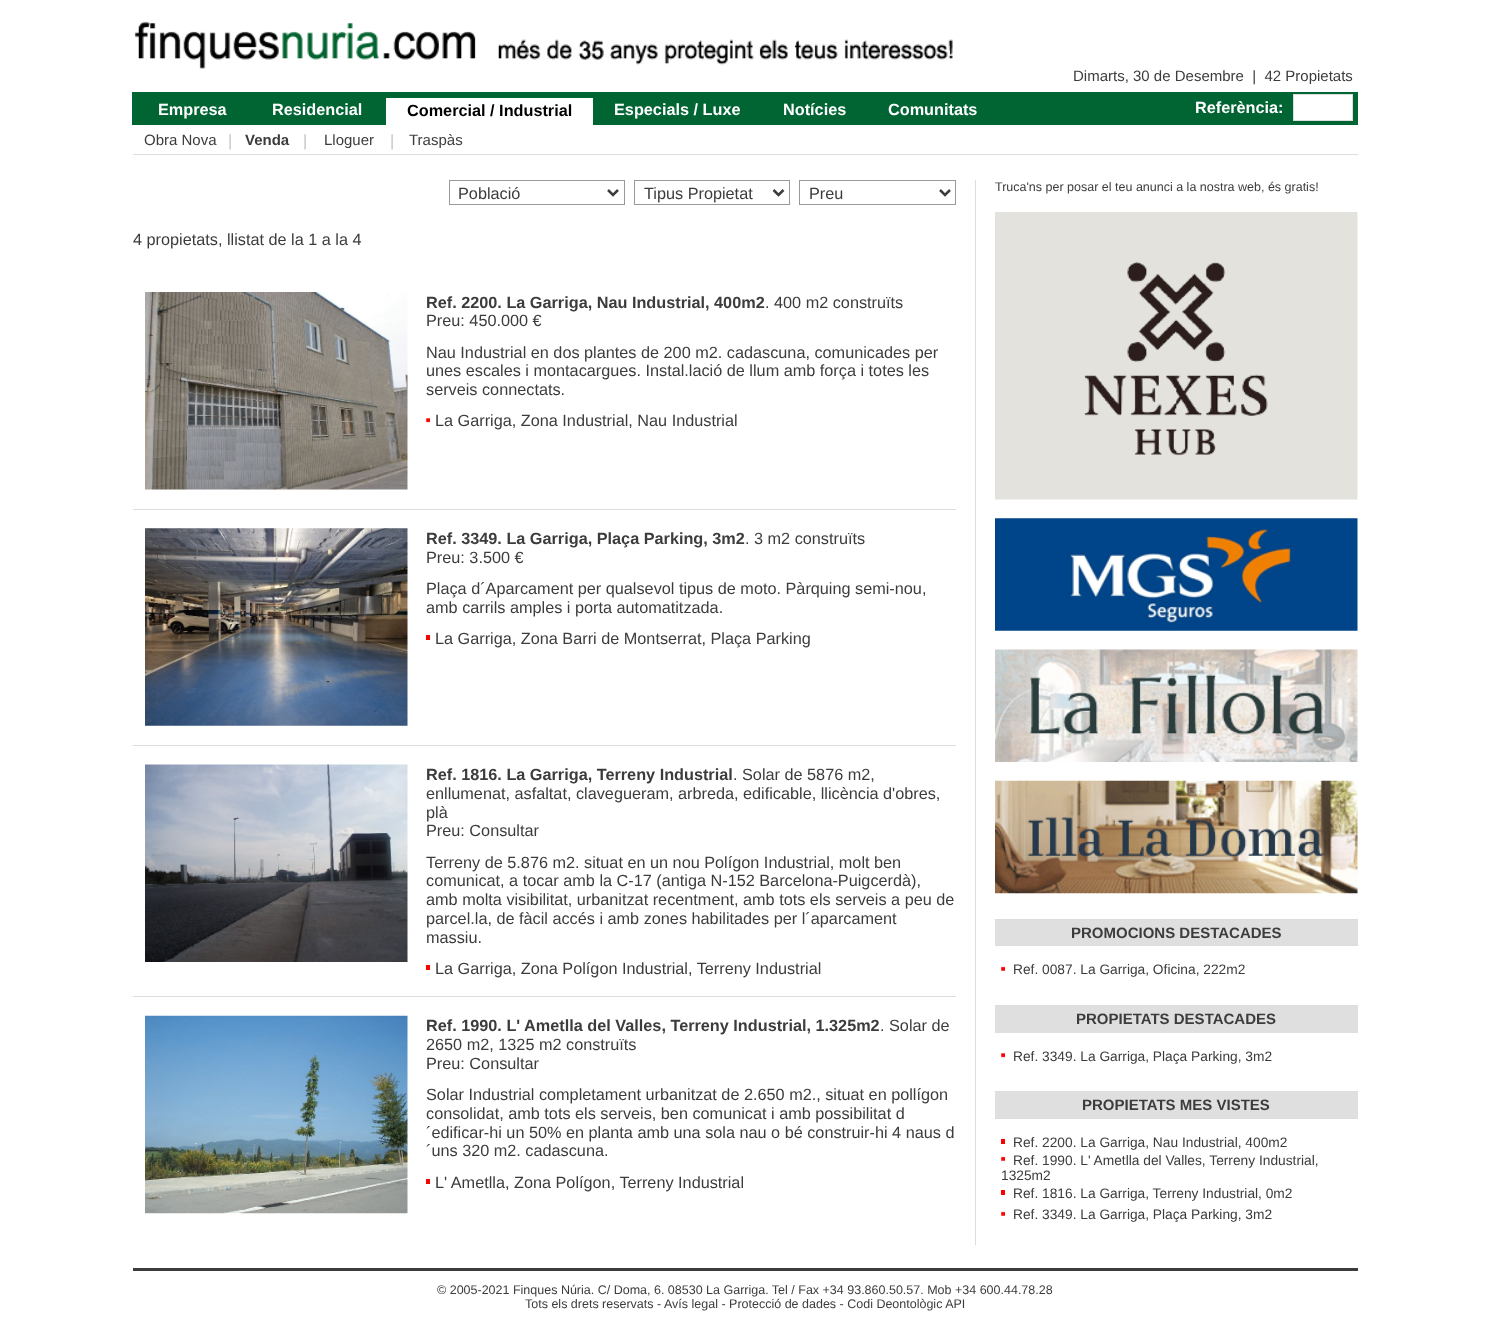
<svg xmlns="http://www.w3.org/2000/svg" width="1490" height="1329">
<rect width="100%" height="100%" fill="#fff"/>
<image x="134" y="21" width="342" height="48" href="media/1.png"/>
<image x="498" y="39" width="455" height="27" href="media/2.png"/>
<text x="1073" y="81" style="font-family:Liberation Sans;font-size:15px;fill:#3c3c3c" xml:space="preserve">Dimarts, 30 de Desembre  |  42 Propietats</text>
<rect x="132" y="92" width="1226" height="33" fill="#006433"/>
<text x="158" y="115" style="font-family:Liberation Sans;font-size:16.25px;font-weight:bold;fill:#fff">Empresa</text>
<text x="272" y="115" style="font-family:Liberation Sans;font-size:16.25px;font-weight:bold;fill:#fff">Residencial</text>
<rect x="386" y="98" width="207" height="27" fill="#fff"/>
<text x="407" y="116" style="font-family:Liberation Sans;font-size:16.25px;font-weight:bold;fill:#000">Comercial / Industrial</text>
<text x="614" y="115" style="font-family:Liberation Sans;font-size:16.25px;font-weight:bold;fill:#fff">Especials / Luxe</text>
<text x="783" y="115" style="font-family:Liberation Sans;font-size:16.25px;font-weight:bold;fill:#fff">Notícies</text>
<text x="888" y="115" style="font-family:Liberation Sans;font-size:16.25px;font-weight:bold;fill:#fff">Comunitats</text>
<text x="1195" y="113" style="font-family:Liberation Sans;font-size:16.25px;font-weight:bold;fill:#fff">Referència:</text>
<rect x="1293.5" y="94.5" width="59" height="26" fill="#fff" stroke="#ddd"/>
<rect x="133" y="154" width="1225" height="1" fill="#ddd"/>
<text x="144" y="145" style="font-family:Liberation Sans;font-size:15px;fill:#3c3c3c">Obra Nova</text>
<text x="228" y="146" style="font-family:Liberation Sans;font-size:16.25px;fill:#c0c6c4">|</text>
<text x="245" y="145" style="font-family:Liberation Sans;font-size:15px;font-weight:bold;fill:#3c3c3c">Venda</text>
<text x="303" y="146" style="font-family:Liberation Sans;font-size:16.25px;fill:#c0c6c4">|</text>
<text x="324" y="145" style="font-family:Liberation Sans;font-size:15px;fill:#3c3c3c">Lloguer</text>
<text x="390" y="146" style="font-family:Liberation Sans;font-size:16.25px;fill:#c0c6c4">|</text>
<text x="409" y="145" style="font-family:Liberation Sans;font-size:15px;fill:#3c3c3c">Traspàs</text>
<rect x="449.5" y="180.5" width="175" height="24" fill="none" stroke="#999"/>
<path d="M608 190l5 5l5-5" fill="none" stroke="#3c3c3c" stroke-width="2.5"/>
<text x="458" y="199" style="font-family:Liberation Sans;font-size:16.25px;fill:#3c3c3c">Població</text>
<rect x="634.5" y="180.5" width="155" height="24" fill="none" stroke="#999"/>
<path d="M773.5 190l5 5l5-5" fill="none" stroke="#3c3c3c" stroke-width="2.5"/>
<text x="644" y="199" style="font-family:Liberation Sans;font-size:16.25px;fill:#3c3c3c">Tipus Propietat</text>
<rect x="799.5" y="180.5" width="156" height="24" fill="none" stroke="#999"/>
<path d="M940 190l5 5l5-5" fill="none" stroke="#3c3c3c" stroke-width="2.5"/>
<text x="809" y="199" style="font-family:Liberation Sans;font-size:16.25px;fill:#3c3c3c">Preu</text>
<text x="133" y="245" style="font-family:Liberation Sans;font-size:16.25px;fill:#3c3c3c">4 propietats, llistat de la 1 a la 4</text>
<image x="145" y="292" width="263" height="198" href="media/3.png"/>
<text x="426" y="308" style="font-family:Liberation Sans;font-size:16.25px;font-weight:bold;fill:#3c3c3c">Ref. 2200. La Garriga, Nau Industrial, 400m2</text>
<text x="765" y="308" style="font-family:Liberation Sans;font-size:16.25px;fill:#3c3c3c">. 400 m2 construïts</text>
<text x="426" y="326" style="font-family:Liberation Sans;font-size:16.25px;fill:#3c3c3c">Preu: 450.000 €</text>
<text x="426" y="358" style="font-family:Liberation Sans;font-size:16.25px;fill:#3c3c3c">Nau Industrial en dos plantes de 200 m2. cadascuna, comunicades per</text>
<text x="426" y="376" style="font-family:Liberation Sans;font-size:16.25px;fill:#3c3c3c">unes escales i montacargues. Instal.lació de llum amb força i totes les</text>
<text x="426" y="395" style="font-family:Liberation Sans;font-size:16.25px;fill:#3c3c3c">serveis connectats.</text>
<image x="426" y="418" width="4" height="5" href="media/4.png"/>
<text x="435" y="426" style="font-family:Liberation Sans;font-size:16.25px;fill:#3c3c3c">La Garriga, Zona Industrial, Nau Industrial</text>
<rect x="133" y="509" width="823" height="1" fill="#ddd"/>
<image x="145" y="528" width="263" height="198" href="media/5.png"/>
<text x="426" y="544" style="font-family:Liberation Sans;font-size:16.25px;font-weight:bold;fill:#3c3c3c">Ref. 3349. La Garriga, Plaça Parking, 3m2</text>
<text x="745" y="544" style="font-family:Liberation Sans;font-size:16.25px;fill:#3c3c3c">. 3 m2 construïts</text>
<text x="426" y="563" style="font-family:Liberation Sans;font-size:16.25px;fill:#3c3c3c">Preu: 3.500 €</text>
<text x="426" y="594" style="font-family:Liberation Sans;font-size:16.25px;fill:#3c3c3c">Plaça d´Aparcament per qualsevol tipus de moto. Pàrquing semi-nou,</text>
<text x="426" y="613" style="font-family:Liberation Sans;font-size:16.25px;fill:#3c3c3c">amb carrils amples i porta automatitzada.</text>
<text x="435" y="644" style="font-family:Liberation Sans;font-size:16.25px;fill:#3c3c3c">La Garriga, Zona Barri de Montserrat, Plaça Parking</text>
<rect x="426" y="635" width="4" height="5" fill="#f00"/>
<rect x="133" y="745" width="823" height="1" fill="#ddd"/>
<image x="145" y="764" width="263" height="198" href="media/6.png"/>
<text x="426" y="780" style="font-family:Liberation Sans;font-size:16.25px;font-weight:bold;fill:#3c3c3c">Ref. 1816. La Garriga, Terreny Industrial</text>
<text x="733" y="780" style="font-family:Liberation Sans;font-size:16.25px;fill:#3c3c3c">. Solar de 5876 m2,</text>
<text x="426" y="799" style="font-family:Liberation Sans;font-size:16.25px;fill:#3c3c3c">enllumenat, asfaltat, clavegueram, arbreda, edificable, llicència d'obres,</text>
<text x="426" y="818" style="font-family:Liberation Sans;font-size:16.25px;fill:#3c3c3c">plà</text>
<text x="426" y="836" style="font-family:Liberation Sans;font-size:16.25px;fill:#3c3c3c">Preu: Consultar</text>
<text x="426" y="868" style="font-family:Liberation Sans;font-size:16.25px;fill:#3c3c3c">Terreny de 5.876 m2. situat en un nou Polígon Industrial, molt ben</text>
<text x="426" y="886" style="font-family:Liberation Sans;font-size:16.25px;fill:#3c3c3c">comunicat, a tocar amb la C-17 (antiga N-152 Barcelona-Puigcerdà),</text>
<text x="426" y="905" style="font-family:Liberation Sans;font-size:16.25px;fill:#3c3c3c">amb molta visibilitat, urbanitzat recentment, amb tots els serveis a peu de</text>
<text x="426" y="924" style="font-family:Liberation Sans;font-size:16.25px;fill:#3c3c3c">parcel.la, de fàcil accés i amb zones habilitades per l´aparcament</text>
<text x="426" y="943" style="font-family:Liberation Sans;font-size:16.25px;fill:#3c3c3c">massiu.</text>
<text x="435" y="974" style="font-family:Liberation Sans;font-size:16.25px;fill:#3c3c3c">La Garriga, Zona Polígon Industrial, Terreny Industrial</text>
<rect x="426" y="965" width="4" height="5" fill="#f00"/>
<rect x="133" y="996" width="823" height="1" fill="#ddd"/>
<image x="145" y="1015" width="263" height="199" href="media/7.png"/>
<text x="426" y="1031" style="font-family:Liberation Sans;font-size:16.25px;font-weight:bold;fill:#3c3c3c">Ref. 1990. L' Ametlla del Valles, Terreny Industrial, 1.325m2</text>
<text x="880" y="1031" style="font-family:Liberation Sans;font-size:16.25px;fill:#3c3c3c">. Solar de</text>
<text x="426" y="1050" style="font-family:Liberation Sans;font-size:16.25px;fill:#3c3c3c">2650 m2, 1325 m2 construïts</text>
<text x="426" y="1069" style="font-family:Liberation Sans;font-size:16.25px;fill:#3c3c3c">Preu: Consultar</text>
<text x="426" y="1100" style="font-family:Liberation Sans;font-size:16.25px;fill:#3c3c3c">Solar Industrial completament urbanitzat de 2.650 m2., situat en pollígon</text>
<text x="426" y="1119" style="font-family:Liberation Sans;font-size:16.25px;fill:#3c3c3c">consolidat, amb tots els serveis, ben comunicat i amb possibilitat d</text>
<text x="426" y="1138" style="font-family:Liberation Sans;font-size:16.25px;fill:#3c3c3c">´edificar-hi un 50% en planta amb una sola nau o bé construir-hi 4 naus d</text>
<text x="426" y="1156" style="font-family:Liberation Sans;font-size:16.25px;fill:#3c3c3c">´uns 320 m2. cadascuna.</text>
<text x="435" y="1188" style="font-family:Liberation Sans;font-size:16.25px;fill:#3c3c3c">L' Ametlla, Zona Polígon, Terreny Industrial</text>
<rect x="426" y="1179" width="4" height="5" fill="#f00"/>
<rect x="975" y="180" width="1" height="1065" fill="#ddd"/>
<text x="995" y="191" style="font-family:Liberation Sans;font-size:12.5px;fill:#3c3c3c">Truca'ns per posar el teu anunci a la nostra web, és gratis!</text>
<image x="995" y="212" width="363" height="288" href="media/8.png"/>
<image x="995" y="518" width="363" height="113" href="media/9.png"/>
<image x="995" y="649" width="363" height="113" href="media/10.png"/>
<image x="995" y="780" width="363" height="114" href="media/11.png"/>
<rect x="995" y="920" width="363" height="25" fill="#dfdfdf"/>
<rect x="995" y="919" width="363" height="1" fill="#ddd"/>
<rect x="995" y="945" width="363" height="1" fill="#ddd"/>
<text x="1071" y="938" style="font-family:Liberation Sans;font-size:15px;font-weight:bold;fill:#3c3c3c">PROMOCIONS DESTACADES</text>
<image x="1001" y="966" width="4" height="5" href="media/12.png"/>
<text x="1013" y="974" style="font-family:Liberation Sans;font-size:13.75px;fill:#3c3c3c">Ref. 0087. La Garriga, Oficina, 222m2</text>
<rect x="995" y="1006" width="363" height="27" fill="#dfdfdf"/>
<rect x="995" y="1005" width="363" height="1" fill="#ddd"/>
<text x="1076" y="1024" style="font-family:Liberation Sans;font-size:15px;font-weight:bold;fill:#3c3c3c">PROPIETATS DESTACADES</text>
<image x="1001" y="1053" width="4" height="5" href="media/4.png"/>
<text x="1013" y="1061" style="font-family:Liberation Sans;font-size:13.75px;fill:#3c3c3c">Ref. 3349. La Garriga, Plaça Parking, 3m2</text>
<rect x="995" y="1092" width="363" height="26" fill="#dfdfdf"/>
<rect x="995" y="1091" width="363" height="1" fill="#ddd"/>
<rect x="995" y="1118" width="363" height="1" fill="#ddd"/>
<text x="1082" y="1110" style="font-family:Liberation Sans;font-size:15px;font-weight:bold;fill:#3c3c3c">PROPIETATS MES VISTES</text>
<text x="1013" y="1147" style="font-family:Liberation Sans;font-size:13.75px;fill:#3c3c3c">Ref. 2200. La Garriga, Nau Industrial, 400m2</text>
<rect x="1001" y="1139" width="4" height="5" fill="#f00"/>
<image x="1001" y="1156" width="4" height="5" href="media/12.png"/>
<text x="1013" y="1165" style="font-family:Liberation Sans;font-size:13.75px;fill:#3c3c3c">Ref. 1990. L' Ametlla del Valles, Terreny Industrial,</text>
<text x="1001" y="1180" style="font-family:Liberation Sans;font-size:13.75px;fill:#3c3c3c">1325m2</text>
<text x="1013" y="1198" style="font-family:Liberation Sans;font-size:13.75px;fill:#3c3c3c">Ref. 1816. La Garriga, Terreny Industrial, 0m2</text>
<rect x="1001" y="1190" width="4" height="5" fill="#f00"/>
<image x="1001" y="1211" width="4" height="5" href="media/12.png"/>
<text x="1013" y="1219" style="font-family:Liberation Sans;font-size:13.75px;fill:#3c3c3c">Ref. 3349. La Garriga, Plaça Parking, 3m2</text>
<rect x="133" y="1268" width="1225" height="3" fill="#3c3c3c"/>
<text x="437" y="1294" style="font-family:Liberation Sans;font-size:12.5px;fill:#3c3c3c">© 2005-2021 Finques Núria. C/ Doma, 6. 08530 La Garriga. Tel / Fax +34 93.860.50.57. Mob +34 600.44.78.28</text>
<text x="525" y="1308" style="font-family:Liberation Sans;font-size:12.5px;fill:#3c3c3c">Tots els drets reservats -</text>
<text x="664" y="1308" style="font-family:Liberation Sans;font-size:12.5px;fill:#3c3c3c">Avís legal - Protecció de dades - Codi Deontològic API</text>
</svg>
